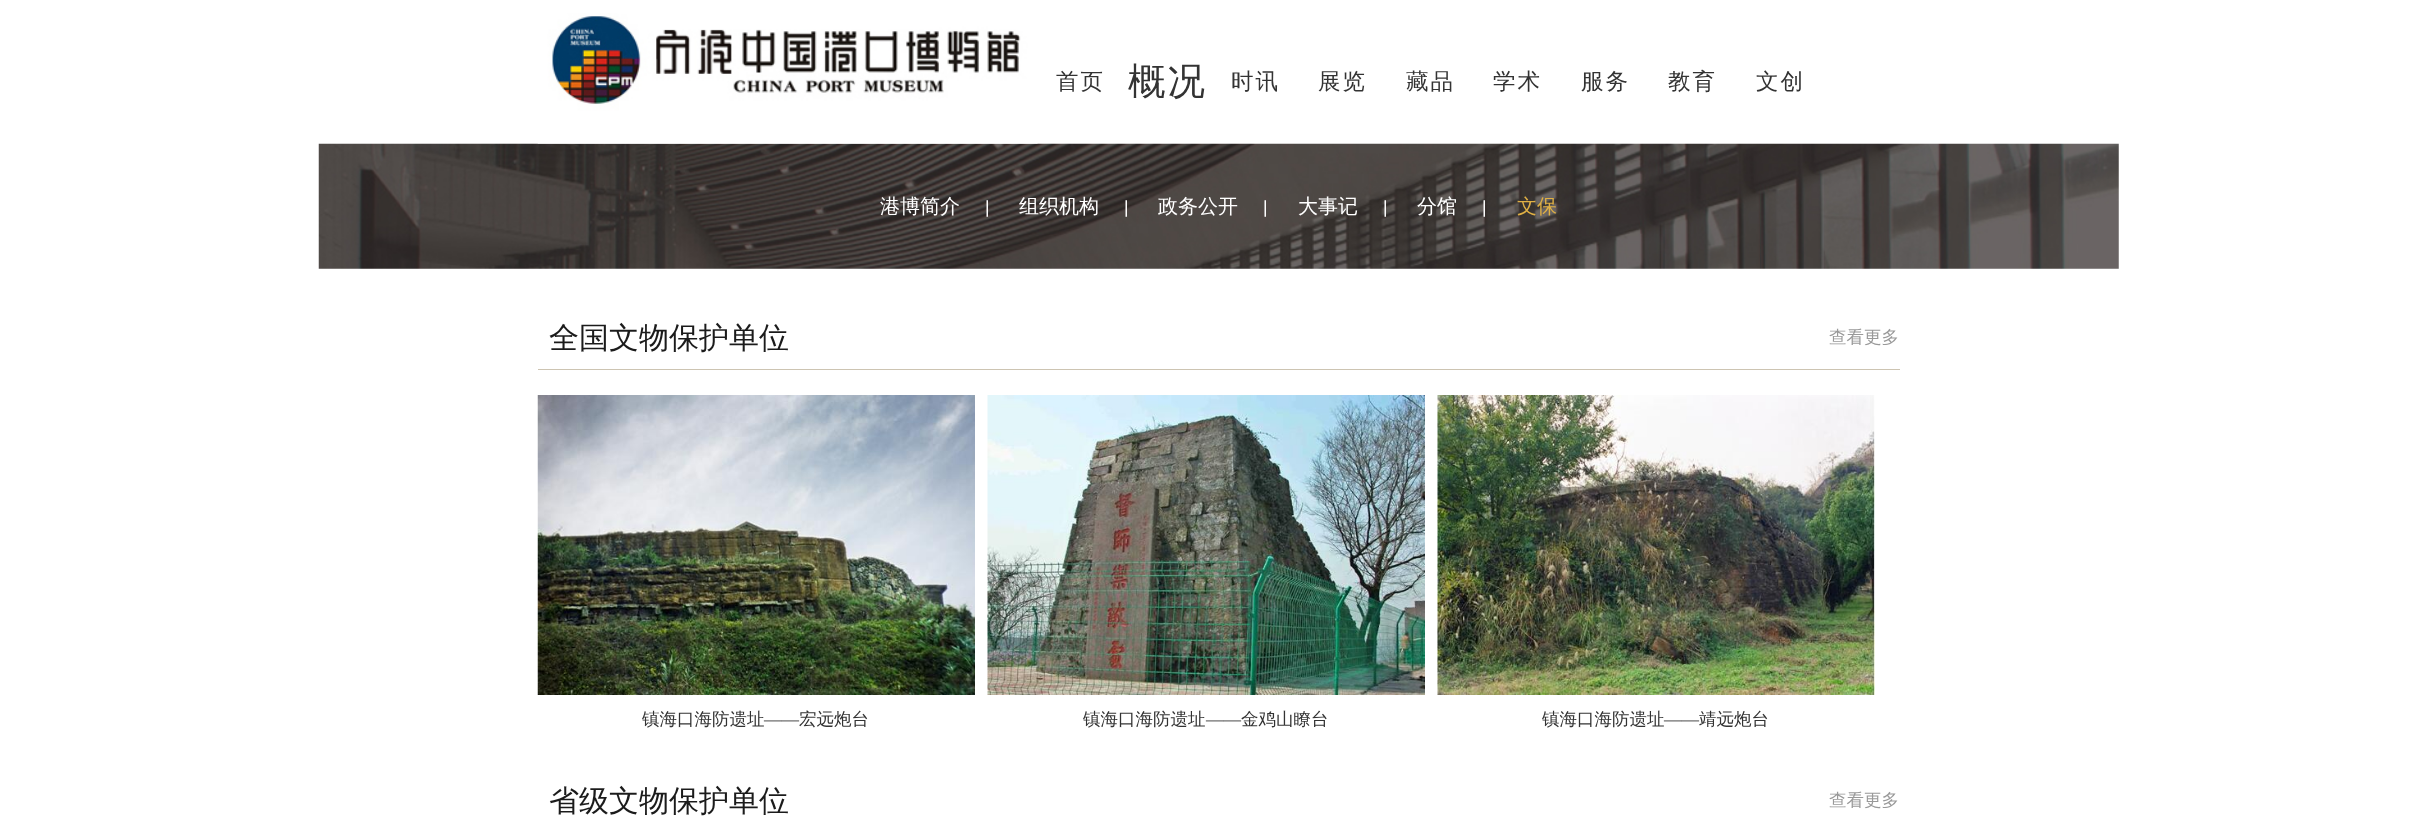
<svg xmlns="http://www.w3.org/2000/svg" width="2436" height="828">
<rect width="100%" height="100%" fill="#fff"/>
<image x="318" y="143" width="1801" height="126" href="media/2.png"/>
<image x="537" y="13" width="501" height="131" href="media/1.png"/>
<text x="1056" y="89" style="font-family:WenQuanYi Zen Hei;font-size:22.5px;font-weight:500;letter-spacing:2px;fill:#333">首页</text>
<text x="1128" y="94" style="font-family:WenQuanYi Zen Hei;font-size:37.5px;font-weight:500;letter-spacing:2px;fill:#333">概况</text>
<text x="1231" y="89" style="font-family:WenQuanYi Zen Hei;font-size:22.5px;font-weight:500;letter-spacing:2px;fill:#333">时讯</text>
<text x="1318" y="89" style="font-family:WenQuanYi Zen Hei;font-size:22.5px;font-weight:500;letter-spacing:2px;fill:#333">展览</text>
<text x="1406" y="89" style="font-family:WenQuanYi Zen Hei;font-size:22.5px;font-weight:500;letter-spacing:2px;fill:#333">藏品</text>
<text x="1493" y="89" style="font-family:WenQuanYi Zen Hei;font-size:22.5px;font-weight:500;letter-spacing:2px;fill:#333">学术</text>
<text x="1581" y="89" style="font-family:WenQuanYi Zen Hei;font-size:22.5px;font-weight:500;letter-spacing:2px;fill:#333">服务</text>
<text x="1668" y="89" style="font-family:WenQuanYi Zen Hei;font-size:22.5px;font-weight:500;letter-spacing:2px;fill:#333">教育</text>
<text x="1756" y="89" style="font-family:WenQuanYi Zen Hei;font-size:22.5px;font-weight:500;letter-spacing:2px;fill:#333">文创</text>
<text x="880" y="213" style="font-family:WenQuanYi Zen Hei;font-size:20px;font-weight:500;fill:#fff">港博简介</text>
<text x="985" y="213" style="font-family:Liberation Sans;font-size:17.5px;fill:#fff">|</text>
<text x="1019" y="213" style="font-family:WenQuanYi Zen Hei;font-size:20px;font-weight:500;fill:#fff">组织机构</text>
<text x="1124" y="213" style="font-family:Liberation Sans;font-size:17.5px;fill:#fff">|</text>
<text x="1158" y="213" style="font-family:WenQuanYi Zen Hei;font-size:20px;font-weight:500;fill:#fff">政务公开</text>
<text x="1263" y="213" style="font-family:Liberation Sans;font-size:17.5px;fill:#fff">|</text>
<text x="1298" y="213" style="font-family:WenQuanYi Zen Hei;font-size:20px;font-weight:500;fill:#fff">大事记</text>
<text x="1383" y="213" style="font-family:Liberation Sans;font-size:17.5px;fill:#fff">|</text>
<text x="1417" y="213" style="font-family:WenQuanYi Zen Hei;font-size:20px;font-weight:500;fill:#fff">分馆</text>
<text x="1482" y="213" style="font-family:Liberation Sans;font-size:17.5px;fill:#fff">|</text>
<text x="1517" y="213" style="font-family:WenQuanYi Zen Hei;font-size:20px;font-weight:500;fill:#e0b045">文保</text>
<rect x="538" y="369" width="1362" height="1" fill="#cdc4b2"/>
<text x="549" y="348" style="font-family:WenQuanYi Zen Hei;font-size:30px;font-weight:500;fill:#1b1b1b">全国文物保护单位</text>
<text x="1829" y="343" style="font-family:WenQuanYi Zen Hei;font-size:17.5px;font-weight:500;fill:#999">查看更多</text>
<image x="537" y="395" width="438" height="300" href="media/3.png"/>
<text x="642" y="725" style="font-family:WenQuanYi Zen Hei;font-size:17.5px;font-weight:500;fill:#333">镇海口海防遗址</text>
<text x="764" y="725" style="font-family:Liberation Serif;font-size:17.5px;fill:#333">——</text>
<text x="799" y="725" style="font-family:WenQuanYi Zen Hei;font-size:17.5px;font-weight:500;fill:#333">宏远炮台</text>
<image x="987" y="395" width="438" height="300" href="media/4.png"/>
<text x="1083" y="725" style="font-family:WenQuanYi Zen Hei;font-size:17.5px;font-weight:500;fill:#333">镇海口海防遗址</text>
<text x="1206" y="725" style="font-family:Liberation Serif;font-size:17.5px;fill:#333">——</text>
<text x="1241" y="725" style="font-family:WenQuanYi Zen Hei;font-size:17.5px;font-weight:500;fill:#333">金鸡山瞭台</text>
<image x="1437" y="395" width="438" height="300" href="media/5.png"/>
<text x="1542" y="725" style="font-family:WenQuanYi Zen Hei;font-size:17.5px;font-weight:500;fill:#333">镇海口海防遗址</text>
<text x="1664" y="725" style="font-family:Liberation Serif;font-size:17.5px;fill:#333">——</text>
<text x="1699" y="725" style="font-family:WenQuanYi Zen Hei;font-size:17.5px;font-weight:500;fill:#333">靖远炮台</text>
<text x="549" y="811" style="font-family:WenQuanYi Zen Hei;font-size:30px;font-weight:500;fill:#1b1b1b">省级文物保护单位</text>
<text x="1829" y="806" style="font-family:WenQuanYi Zen Hei;font-size:17.5px;font-weight:500;fill:#999">查看更多</text>
</svg>
